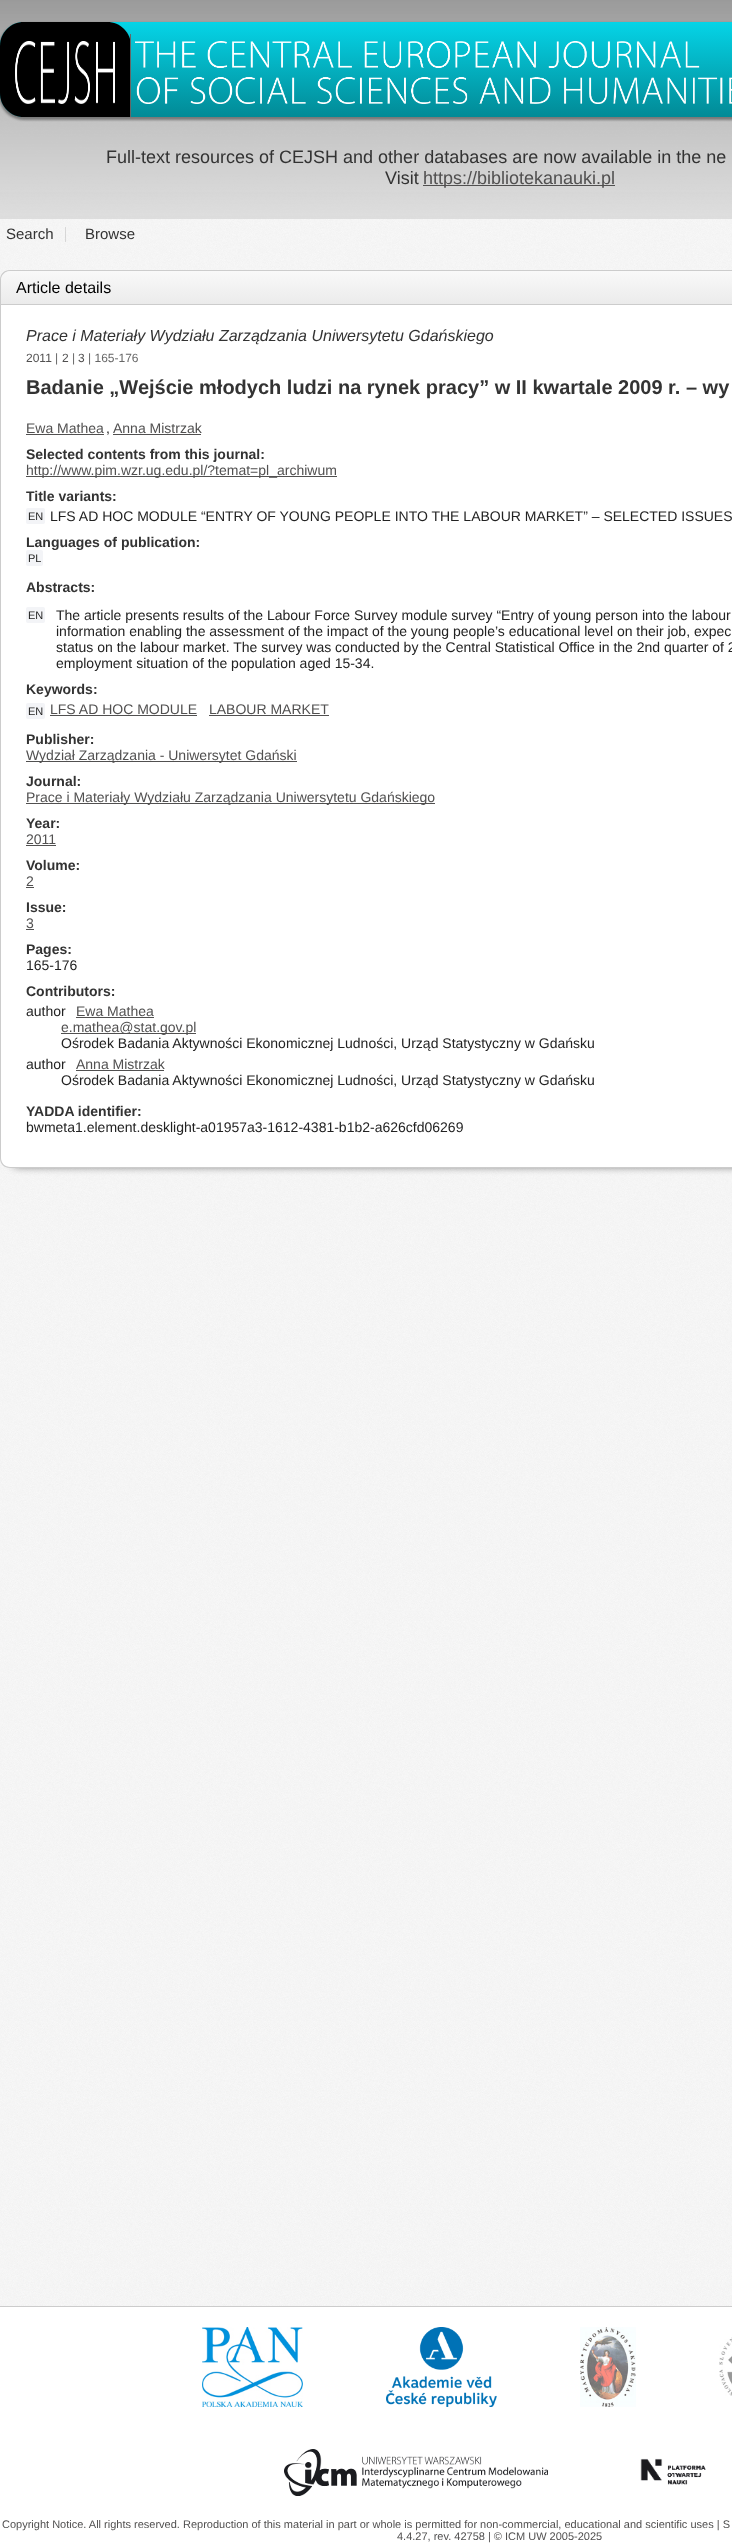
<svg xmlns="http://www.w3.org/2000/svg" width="732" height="2543">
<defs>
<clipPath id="clip1"><path d="M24 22h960c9 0 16 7 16 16v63c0 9-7 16-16 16h-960c-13.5 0-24-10.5-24-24v-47c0-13.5 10.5-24 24-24z"/></clipPath>
<linearGradient id="g1" gradientUnits="userSpaceOnUse" x1="500" y1="22" x2="500" y2="117"><stop offset="0" stop-color="#05d4e7"/><stop offset="1" stop-color="#028a96"/></linearGradient>
<linearGradient id="g2" gradientUnits="userSpaceOnUse" x1="501" y1="271" x2="501" y2="304"><stop offset="0" stop-color="#f9f9f9"/><stop offset="1" stop-color="#ebebeb"/></linearGradient>
</defs>
<rect width="100%" height="100%" fill="#fff"/>
<image x="0" y="0" width="732" height="2306" href="media/1.png"/>
<rect x="-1" y="23" width="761" height="97" rx="25" fill="#32323280" filter="blur(1px)"/>
<g clip-path="url(#clip1)">
<rect x="-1" y="23" width="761" height="97" rx="25" fill="#32323280" filter="blur(1px)"/>
</g>
<path d="M24 22h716c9 0 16 7 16 16v63c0 9-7 16-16 16h-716c-13.5 0-24-10.5-24-24v-47c0-13.5 10.5-24 24-24z" fill="url(#g1)"/>
<path d="M24 22h83c13.5 0 24 10.5 24 24v71h-107c-13.5 0-24-10.5-24-24v-47c0-13.5 10.5-24 24-24z" fill="#000"/>
<rect x="130" y="34" width="1" height="83" fill="#666"/>
<image x="15" y="41" width="100" height="63" href="media/2.png"/>
<image x="135" y="41" width="597" height="63" href="media/3.png"/>
<text x="106" y="163" style="font-family:Liberation Sans;font-size:18px;fill:#333">Full-text resources of CEJSH and other databases are now available in the ne</text>
<text x="385" y="184" style="font-family:Liberation Sans;font-size:18px;fill:#333">Visit</text>
<rect x="423" y="185" width="192" height="1" fill="#515050"/>
<text x="423" y="184" style="font-family:Liberation Sans;font-size:18px;fill:#515050">https://bibliotekanauki.pl</text>
<image x="0" y="219" width="732" height="31" href="media/4.png"/>
<text x="6" y="239" style="font-family:Liberation Sans;font-size:15px;fill:#333">Search</text>
<rect x="65" y="227" width="1" height="15" fill="#64646433" filter="blur(0.5px)"/>
<text x="85" y="239" style="font-family:Liberation Sans;font-size:15px;fill:#333">Browse</text>
<path d="M10 270h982c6 0 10 4 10 10v25h-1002v-25c0-6 4-10 10-10zm0 1h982c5 0 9 4 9 9v25h-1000v-25c0-5 4-9 9-9z" fill="#ccc" fill-rule="evenodd"/>
<path d="M11 271h721c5.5 0 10 4.5 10 10v23h-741v-23c0-5.5 4.5-10 10-10z" fill="url(#g2)"/>
<rect x="1" y="304" width="731" height="1" fill="#ccc"/>
<text x="16" y="293" style="font-family:Liberation Sans;font-size:16px;fill:#000">Article details</text>
<rect x="14" y="1140" width="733" height="25" fill="#000000cc" filter="blur(5px)"/>
<path d="M1 305h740v853c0 5-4 9-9 9h-722c-5 0-9-4-9-9z" fill="#fff"/>
<path d="M0 305h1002v853c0 6-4 10-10 10h-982c-6 0-10-4-10-10zm1 0h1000v853c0 5-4 9-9 9h-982c-5 0-9-4-9-9z" fill="#ccc" fill-rule="evenodd"/>
<text x="26" y="341" style="font-family:Liberation Sans;font-size:16px;font-style:italic;fill:#333">Prace i Materiały Wydziału Zarządzania Uniwersytetu Gdańskiego</text>
<text x="26" y="362" style="font-family:Liberation Sans;font-size:12px;fill:#515050">2011</text>
<text x="55" y="362" style="font-family:Liberation Sans;font-size:12px;fill:#666">|</text>
<text x="62" y="362" style="font-family:Liberation Sans;font-size:12px;fill:#515050">2</text>
<text x="72" y="362" style="font-family:Liberation Sans;font-size:12px;fill:#666">|</text>
<text x="78" y="362" style="font-family:Liberation Sans;font-size:12px;fill:#515050">3</text>
<text x="88" y="362" style="font-family:Liberation Sans;font-size:12px;fill:#666">| 165-176</text>
<text x="26" y="394" style="font-family:Liberation Sans;font-size:20px;font-weight:bold;fill:#333">Badanie „Wejście młodych ludzi na rynek pracy” w II kwartale 2009 r. – wy</text>
<text x="26" y="433" style="font-family:Liberation Sans;font-size:14px;fill:#515050">Ewa Mathea</text>
<rect x="26" y="434" width="78" height="1" fill="#515050"/>
<text x="106" y="433" style="font-family:Liberation Sans;font-size:14px;fill:#222">,</text>
<text x="113" y="433" style="font-family:Liberation Sans;font-size:14px;fill:#515050">Anna Mistrzak</text>
<rect x="113" y="434" width="88" height="1" fill="#515050"/>
<text x="26" y="459" style="font-family:Liberation Sans;font-size:14px;font-weight:bold;fill:#333">Selected contents from this journal:</text>
<rect x="26" y="476" width="311" height="1" fill="#515050"/>
<text x="26" y="475" style="font-family:Liberation Sans;font-size:14px;fill:#515050">http://www.pim.wzr.ug.edu.pl/?temat=pl_archiwum</text>
<text x="26" y="501" style="font-family:Liberation Sans;font-size:14px;font-weight:bold;fill:#333">Title variants:</text>
<rect x="26" y="508" width="19" height="16" rx="2" fill="#f3f4f7"/>
<text x="28" y="520" style="font-family:Liberation Sans;font-size:11px;fill:#222">EN</text>
<text x="50" y="521" style="font-family:Liberation Sans;font-size:14px;fill:#222">LFS AD HOC MODULE “ENTRY OF YOUNG PEOPLE INTO THE LABOUR MARKET” – SELECTED ISSUES</text>
<text x="26" y="547" style="font-family:Liberation Sans;font-size:14px;font-weight:bold;fill:#333">Languages of publication:</text>
<rect x="26" y="550" width="17" height="16" rx="2" fill="#f3f4f7"/>
<text x="28" y="562" style="font-family:Liberation Sans;font-size:11px;fill:#222">PL</text>
<text x="26" y="592" style="font-family:Liberation Sans;font-size:14px;font-weight:bold;fill:#333">Abstracts:</text>
<rect x="26" y="607" width="19" height="16" rx="2" fill="#f3f4f7"/>
<text x="28" y="619" style="font-family:Liberation Sans;font-size:11px;fill:#222">EN</text>
<text x="56" y="620" style="font-family:Liberation Sans;font-size:14px;fill:#222">The article presents results of the Labour Force Survey module survey “Entry of young person into the labour</text>
<text x="56" y="636" style="font-family:Liberation Sans;font-size:14px;fill:#222">information enabling the assessment of the impact of the young people’s educational level on their job, expec</text>
<text x="56" y="652" style="font-family:Liberation Sans;font-size:14px;fill:#222">status on the labour market. The survey was conducted by the Central Statistical Office in the 2nd quarter of 2</text>
<text x="56" y="668" style="font-family:Liberation Sans;font-size:14px;fill:#222">employment situation of the population aged 15-34.</text>
<text x="26" y="694" style="font-family:Liberation Sans;font-size:14px;font-weight:bold;fill:#333">Keywords:</text>
<rect x="26" y="703" width="19" height="16" rx="2" fill="#f3f4f7"/>
<text x="28" y="715" style="font-family:Liberation Sans;font-size:11px;fill:#222">EN</text>
<text x="50" y="714" style="font-family:Liberation Sans;font-size:14px;fill:#515050">LFS AD HOC MODULE</text>
<rect x="50" y="715" width="147" height="1" fill="#515050"/>
<text x="209" y="714" style="font-family:Liberation Sans;font-size:14px;fill:#515050">LABOUR MARKET</text>
<rect x="209" y="715" width="120" height="1" fill="#515050"/>
<text x="26" y="744" style="font-family:Liberation Sans;font-size:14px;font-weight:bold;fill:#333">Publisher:</text>
<rect x="26" y="761" width="271" height="1" fill="#515050"/>
<text x="26" y="760" style="font-family:Liberation Sans;font-size:14px;fill:#515050">Wydział Zarządzania - Uniwersytet Gdański</text>
<text x="26" y="786" style="font-family:Liberation Sans;font-size:14px;font-weight:bold;fill:#333">Journal:</text>
<rect x="26" y="803" width="409" height="1" fill="#515050"/>
<text x="26" y="802" style="font-family:Liberation Sans;font-size:14px;fill:#515050">Prace i Materiały Wydziału Zarządzania Uniwersytetu Gdańskiego</text>
<text x="26" y="828" style="font-family:Liberation Sans;font-size:14px;font-weight:bold;fill:#333">Year:</text>
<text x="26" y="844" style="font-family:Liberation Sans;font-size:14px;fill:#515050">2011</text>
<rect x="26" y="845" width="30" height="1" fill="#515050"/>
<text x="26" y="870" style="font-family:Liberation Sans;font-size:14px;font-weight:bold;fill:#333">Volume:</text>
<text x="26" y="886" style="font-family:Liberation Sans;font-size:14px;fill:#515050">2</text>
<rect x="26" y="887" width="8" height="1" fill="#515050"/>
<text x="26" y="912" style="font-family:Liberation Sans;font-size:14px;font-weight:bold;fill:#333">Issue:</text>
<text x="26" y="928" style="font-family:Liberation Sans;font-size:14px;fill:#515050">3</text>
<rect x="26" y="929" width="8" height="1" fill="#515050"/>
<text x="26" y="954" style="font-family:Liberation Sans;font-size:14px;font-weight:bold;fill:#333">Pages:</text>
<text x="26" y="970" style="font-family:Liberation Sans;font-size:14px;fill:#222">165-176</text>
<text x="26" y="996" style="font-family:Liberation Sans;font-size:14px;font-weight:bold;fill:#333">Contributors:</text>
<text x="26" y="1016" style="font-family:Liberation Sans;font-size:14px;fill:#222">author</text>
<text x="76" y="1016" style="font-family:Liberation Sans;font-size:14px;fill:#515050">Ewa Mathea</text>
<rect x="76" y="1017" width="78" height="1" fill="#515050"/>
<rect x="61" y="1033" width="135" height="1" fill="#515050"/>
<text x="61" y="1032" style="font-family:Liberation Sans;font-size:14px;fill:#515050">e.mathea@stat.gov.pl</text>
<text x="61" y="1048" style="font-family:Liberation Sans;font-size:14px;fill:#222">Ośrodek Badania Aktywności Ekonomicznej Ludności, Urząd Statystyczny w Gdańsku</text>
<text x="26" y="1069" style="font-family:Liberation Sans;font-size:14px;fill:#222">author</text>
<text x="76" y="1069" style="font-family:Liberation Sans;font-size:14px;fill:#515050">Anna Mistrzak</text>
<rect x="76" y="1070" width="88" height="1" fill="#515050"/>
<text x="61" y="1085" style="font-family:Liberation Sans;font-size:14px;fill:#222">Ośrodek Badania Aktywności Ekonomicznej Ludności, Urząd Statystyczny w Gdańsku</text>
<text x="26" y="1116" style="font-family:Liberation Sans;font-size:14px;font-weight:bold;fill:#333">YADDA identifier:</text>
<text x="26" y="1132" style="font-family:Liberation Sans;font-size:14px;fill:#222">bwmeta1.element.desklight-a01957a3-1612-4381-b1b2-a626cfd06269</text>
<rect y="2306" width="732" height="1" fill="#ccc"/>
<image x="202" y="2327" width="101" height="80" href="media/5.png"/>
<image x="386" y="2327" width="111" height="80" href="media/6.png"/>
<image x="580" y="2327" width="56" height="80" href="media/7.png"/>
<image x="719" y="2337" width="13" height="59" href="media/8.png"/>
<image x="284" y="2449" width="264" height="47" href="media/9.png"/>
<image x="640" y="2458" width="66" height="27" href="media/10.png"/>
<text x="2" y="2528" style="font-family:Liberation Sans;font-size:11px;fill:#515050">Copyright Notice. All rights reserved. Reproduction of this material in part or whole is permitted for non-commercial, educational and scientific uses | S</text>
<text x="397" y="2540" style="font-family:Liberation Sans;font-size:11px;fill:#515050">4.4.27, rev. 42758 | © ICM UW 2005-2025</text>
</svg>
